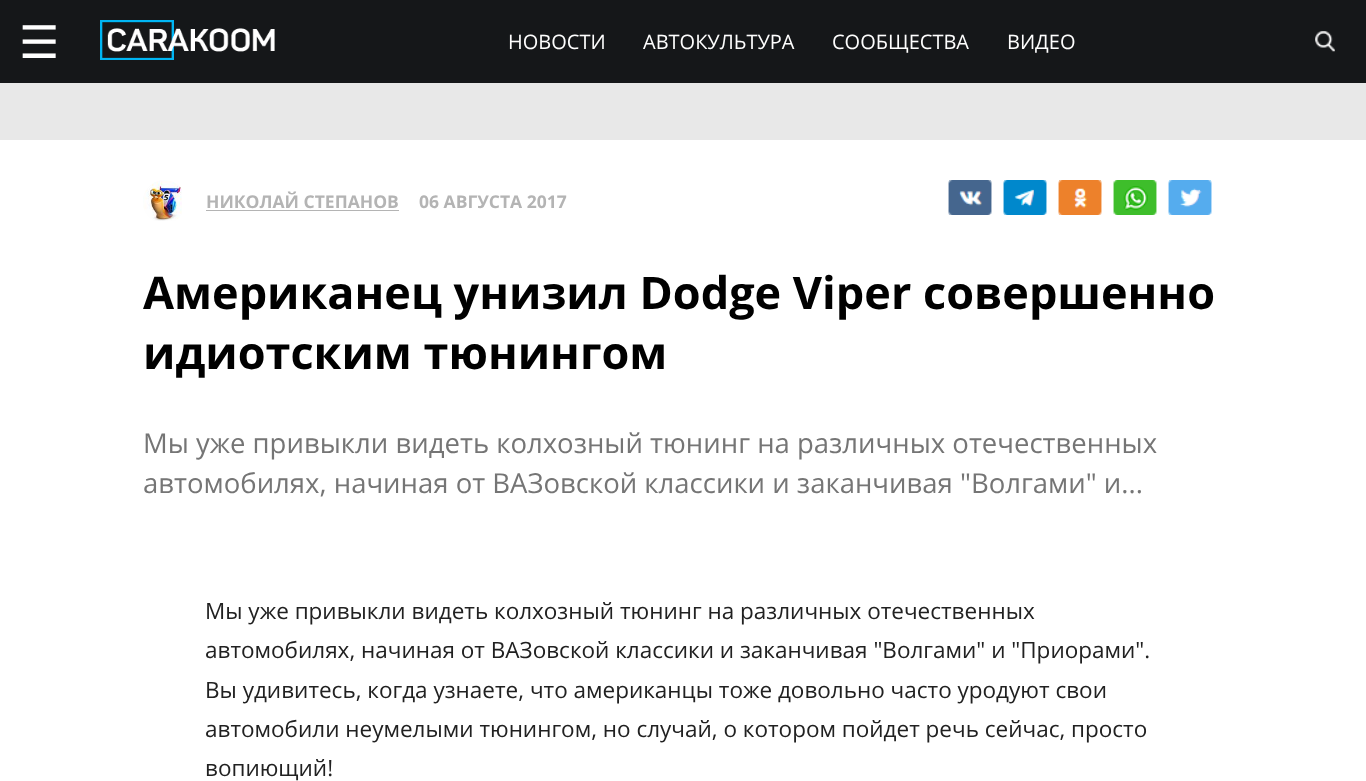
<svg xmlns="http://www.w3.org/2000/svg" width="1366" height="781">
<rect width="100%" height="100%" fill="#fff"/>
<rect width="1366" height="83" fill="#151719"/>
<text x="19" y="58" style="font-family:DejaVu Sans;font-size:45px;fill:#fefefe">☰</text>
<image x="100" y="20" width="175" height="40" href="media/1.png"/>
<text x="508" y="49" style="font-family:Open Sans;font-size:20px;fill:#fefefe">НОВОСТИ</text>
<text x="643" y="49" style="font-family:Open Sans;font-size:20px;fill:#fefefe">АВТОКУЛЬТУРА</text>
<text x="832" y="49" style="font-family:Open Sans;font-size:20px;fill:#fefefe">СООБЩЕСТВА</text>
<text x="1007" y="49" style="font-family:Open Sans;font-size:20px;fill:#fefefe">ВИДЕО</text>
<image x="1315" y="31" width="20" height="21" href="media/2.png"/>
<rect y="83" width="1366" height="57" fill="#e8e8e8"/>
<image x="143" y="180" width="39" height="41" href="media/3.png"/>
<text x="206" y="208" style="font-family:Open Sans;font-size:17.5px;font-weight:bold;fill:#b4b4b4">НИКОЛАЙ СТЕПАНОВ</text>
<rect x="206" y="210" width="193" height="1" fill="#b4b4b4"/>
<text x="419" y="208" style="font-family:Open Sans;font-size:17.5px;font-weight:bold;fill:#b4b4b4">06 АВГУСТА 2017</text>
<rect x="949" y="180" width="42" height="35" fill="#577ca2"/>
<image x="948" y="180" width="44" height="35" href="media/4.png"/>
<image x="948" y="180" width="44" height="35" href="media/5.png"/>
<rect x="1004" y="180" width="42" height="35" fill="#3cb8e5"/>
<image x="1003" y="180" width="44" height="35" href="media/6.png"/>
<image x="1003" y="180" width="44" height="35" href="media/7.png"/>
<rect x="1059" y="180" width="42" height="35" fill="#e47e25"/>
<image x="1058" y="180" width="44" height="35" href="media/8.png"/>
<image x="1058" y="180" width="44" height="35" href="media/9.png"/>
<image x="1113" y="180" width="44" height="35" href="media/10.png"/>
<rect x="1169" y="180" width="42" height="35" fill="#4cc2ff"/>
<image x="1168" y="180" width="44" height="35" href="media/11.png"/>
<image x="1168" y="180" width="44" height="35" href="media/12.png"/>
<image x="1113" y="181" width="44" height="33" href="media/13.png"/>
<text x="143" y="309" style="font-family:Open Sans;font-size:45px;font-weight:bold;fill:#000">Американец унизил Dodge Viper совершенно</text>
<text x="143" y="369" style="font-family:Open Sans;font-size:45px;font-weight:bold;fill:#000">идиотским тюнингом</text>
<text x="143" y="453" style="font-family:Open Sans;font-size:27.5px;fill:#757575">Мы уже привыкли видеть колхозный тюнинг на различных отечественных</text>
<text x="143" y="493" style="font-family:Open Sans;font-size:27.5px;fill:#757575">автомобилях, начиная от ВАЗовской классики и заканчивая "Волгами" и...</text>
<text x="205" y="619" style="font-family:Open Sans;font-size:22.5px;fill:#212121">Мы уже привыкли видеть колхозный тюнинг на различных отечественных</text>
<text x="205" y="658" style="font-family:Open Sans;font-size:22.5px;fill:#212121">автомобилях, начиная от ВАЗовской классики и заканчивая "Волгами" и "Приорами".</text>
<text x="205" y="698" style="font-family:Open Sans;font-size:22.5px;fill:#212121">Вы удивитесь, когда узнаете, что американцы тоже довольно часто уродуют свои</text>
<text x="205" y="737" style="font-family:Open Sans;font-size:22.5px;fill:#212121">автомобили неумелыми тюнингом, но случай, о котором пойдет речь сейчас, просто</text>
<text x="205" y="776" style="font-family:Open Sans;font-size:22.5px;fill:#212121">вопиющий!</text>
</svg>
